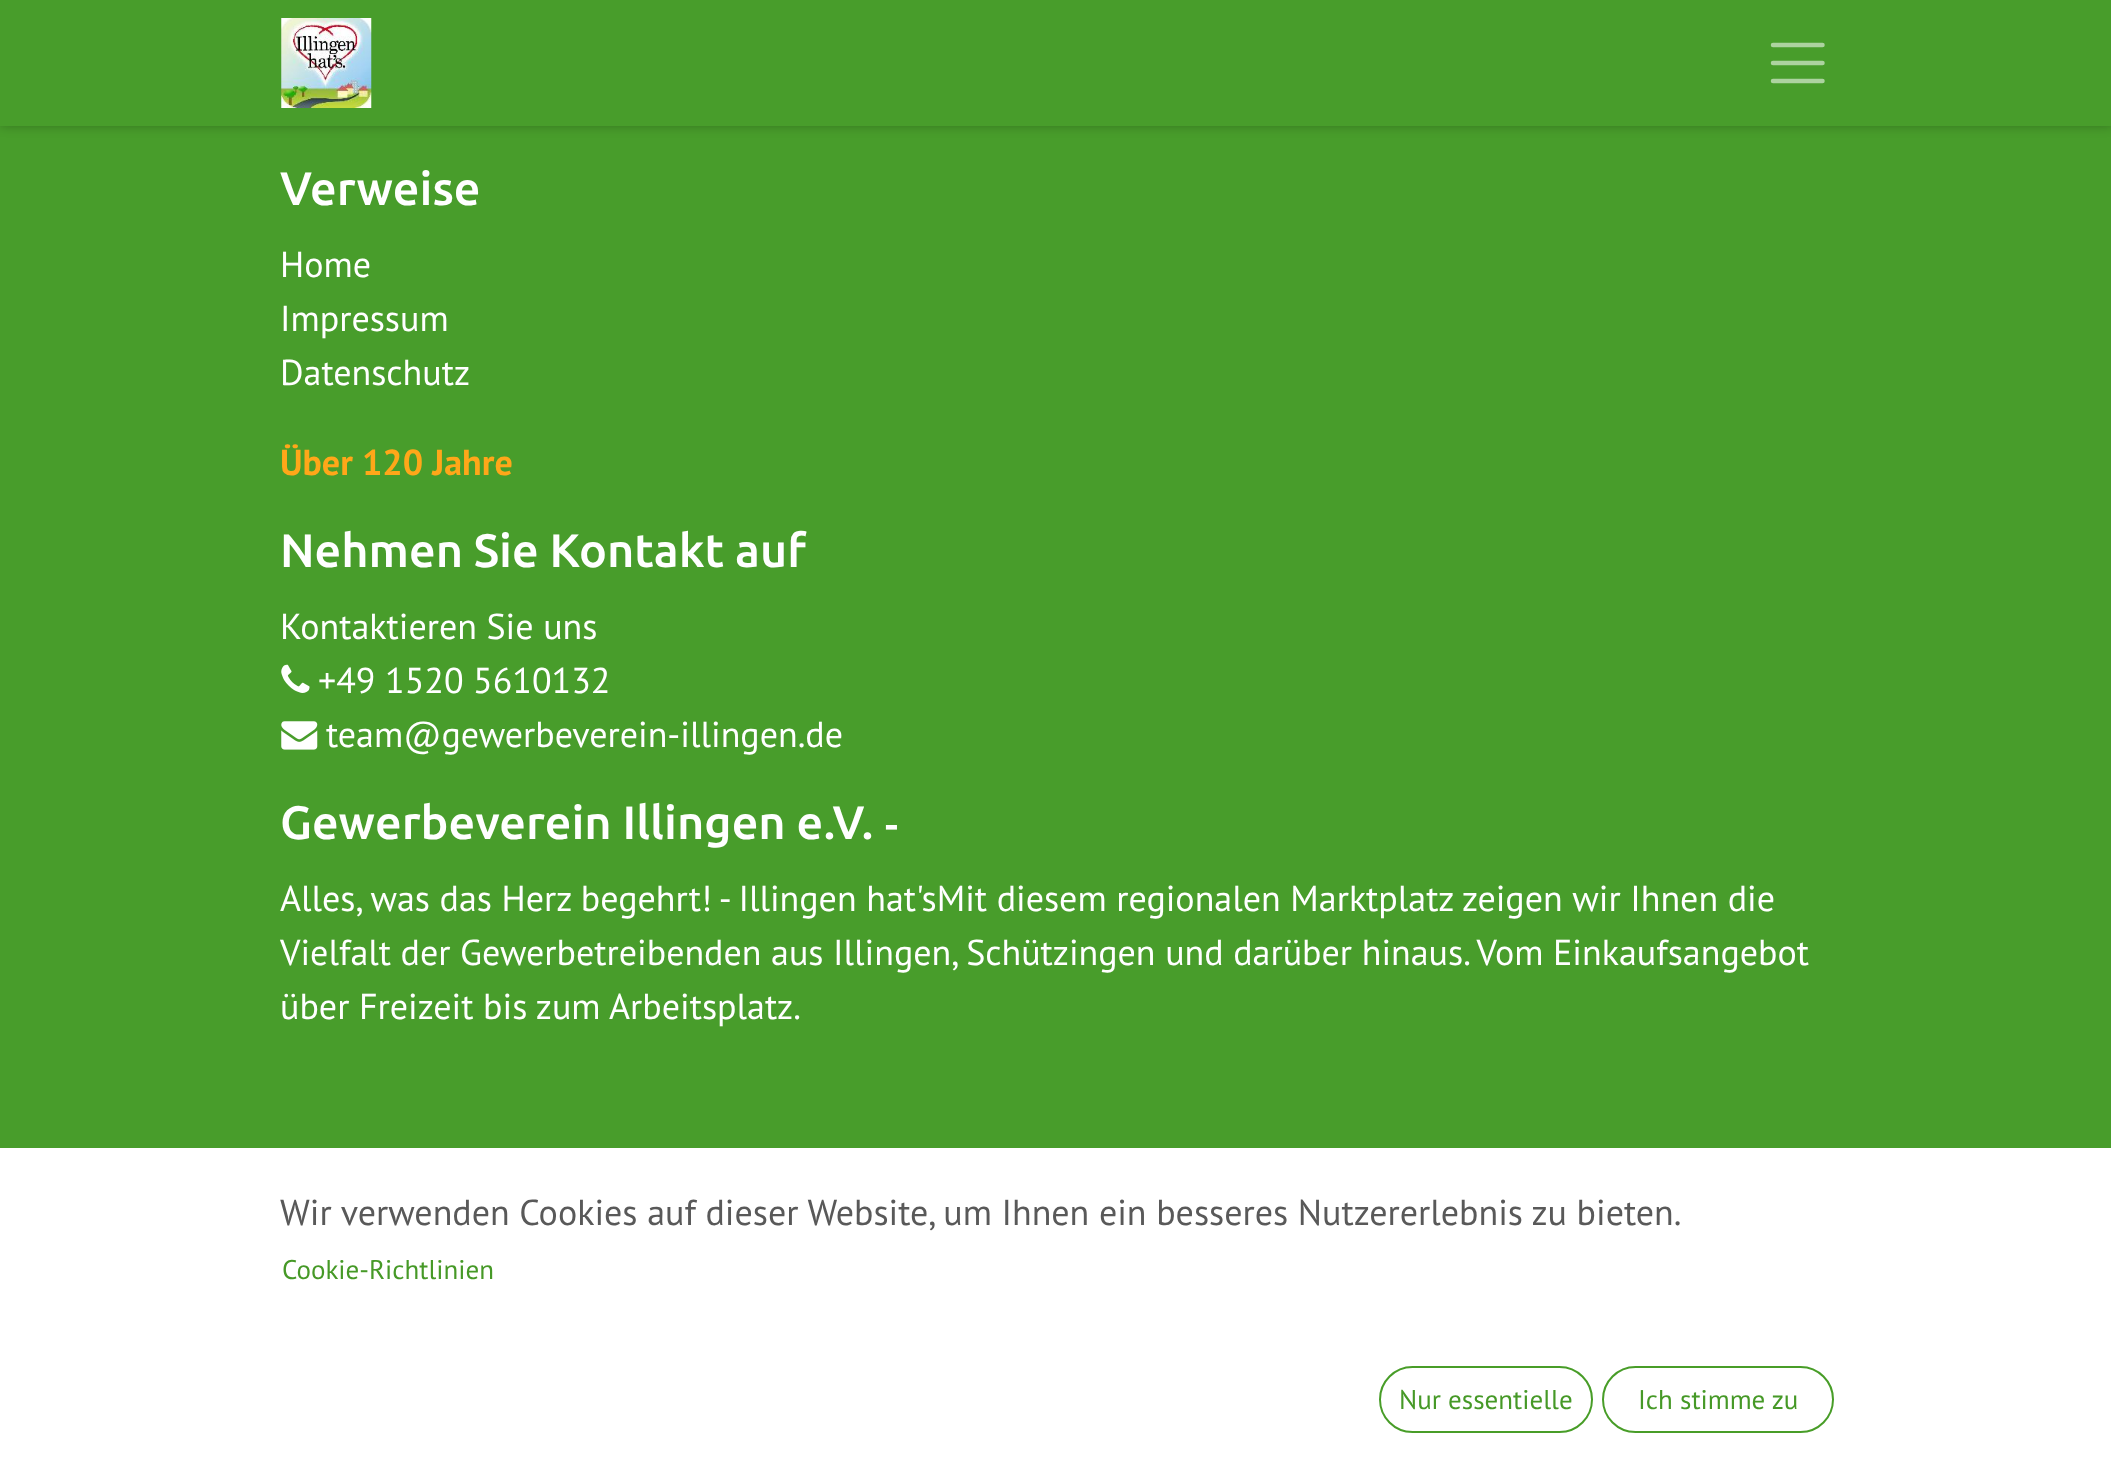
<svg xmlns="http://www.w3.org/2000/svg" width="2111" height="1469">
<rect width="100%" height="100%" fill="#489d2b"/>
<rect width="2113" height="126" fill="#00000040" filter="blur(5.5px)"/>
<rect width="2111" height="126" fill="#489d2b"/>
<image x="281" y="18" width="91" height="90" href="media/1.png"/>
<path d="M1773 45h49.5m-49.5 18h49.5m-49.5 18h49.5" fill="none" stroke="#add3a0" stroke-width="4.5" stroke-linecap="round"/>
<text x="280" y="205" style="font-family:Ubuntu;font-size:46.75px;font-weight:500;fill:#fff">Verweise</text>
<text x="280" y="277" style="font-family:PT Sans;font-size:36px;fill:#fff">Home</text>
<text x="280" y="331" style="font-family:PT Sans;font-size:36px;fill:#fff">Impressum</text>
<text x="280" y="385" style="font-family:PT Sans;font-size:36px;fill:#fff">Datenschutz</text>
<text x="280" y="475" style="font-family:PT Sans;font-size:36px;font-weight:bold;fill:#ffa719">Über 120 Jahre</text>
<text x="280" y="567" style="font-family:Ubuntu;font-size:46.75px;font-weight:500;fill:#fff">Nehmen Sie Kontakt auf</text>
<text x="280" y="639" style="font-family:PT Sans;font-size:36px;fill:#fff">Kontaktieren Sie uns</text>
<image x="281" y="664" width="29" height="29" href="media/2.png"/>
<text x="318" y="693" style="font-family:PT Sans;font-size:36px;fill:#fff">+49 1520 5610132</text>
<image x="281" y="721" width="37" height="29" href="media/3.png"/>
<text x="326" y="747" style="font-family:PT Sans;font-size:36px;fill:#fff">team@gewerbeverein-illingen.de</text>
<text x="280" y="839" style="font-family:Ubuntu;font-size:46.75px;font-weight:500;fill:#fff">Gewerbeverein Illingen e.V.</text>
<text x="885" y="839" style="font-family:Ubuntu;font-size:41px;font-weight:500;fill:#fff">-</text>
<text x="280" y="911" style="font-family:PT Sans;font-size:36px;fill:#fff">Alles, was das Herz begehrt! - Illingen hat'sMit diesem regionalen Marktplatz zeigen wir Ihnen die</text>
<text x="280" y="965" style="font-family:PT Sans;font-size:36px;fill:#fff">Vielfalt der Gewerbetreibenden aus Illingen, Schützingen und darüber hinaus. Vom Einkaufsangebot</text>
<text x="280" y="1019" style="font-family:PT Sans;font-size:36px;fill:#fff">über Freizeit bis zum Arbeitsplatz.</text>
<rect y="1148" width="2111" height="321" fill="#fff"/>
<text x="280" y="1225" style="font-family:PT Sans;font-size:36px;fill:#595959">Wir verwenden Cookies auf dieser Website, um Ihnen ein besseres Nutzererlebnis zu bieten.</text>
<text x="282" y="1279" style="font-family:PT Sans;font-size:27px;fill:#469927">Cookie-Richtlinien</text>
<rect x="1380" y="1367" width="212" height="65" rx="32.5" fill="none" stroke="#489d28" stroke-width="2"/>
<text x="1399" y="1409" style="font-family:PT Sans;font-size:27px;fill:#469927">Nur essentielle</text>
<rect x="1603" y="1367" width="230" height="65" rx="32.5" fill="none" stroke="#489d28" stroke-width="2"/>
<text x="1638" y="1409" style="font-family:PT Sans;font-size:27px;fill:#469927">Ich stimme zu</text>
</svg>
